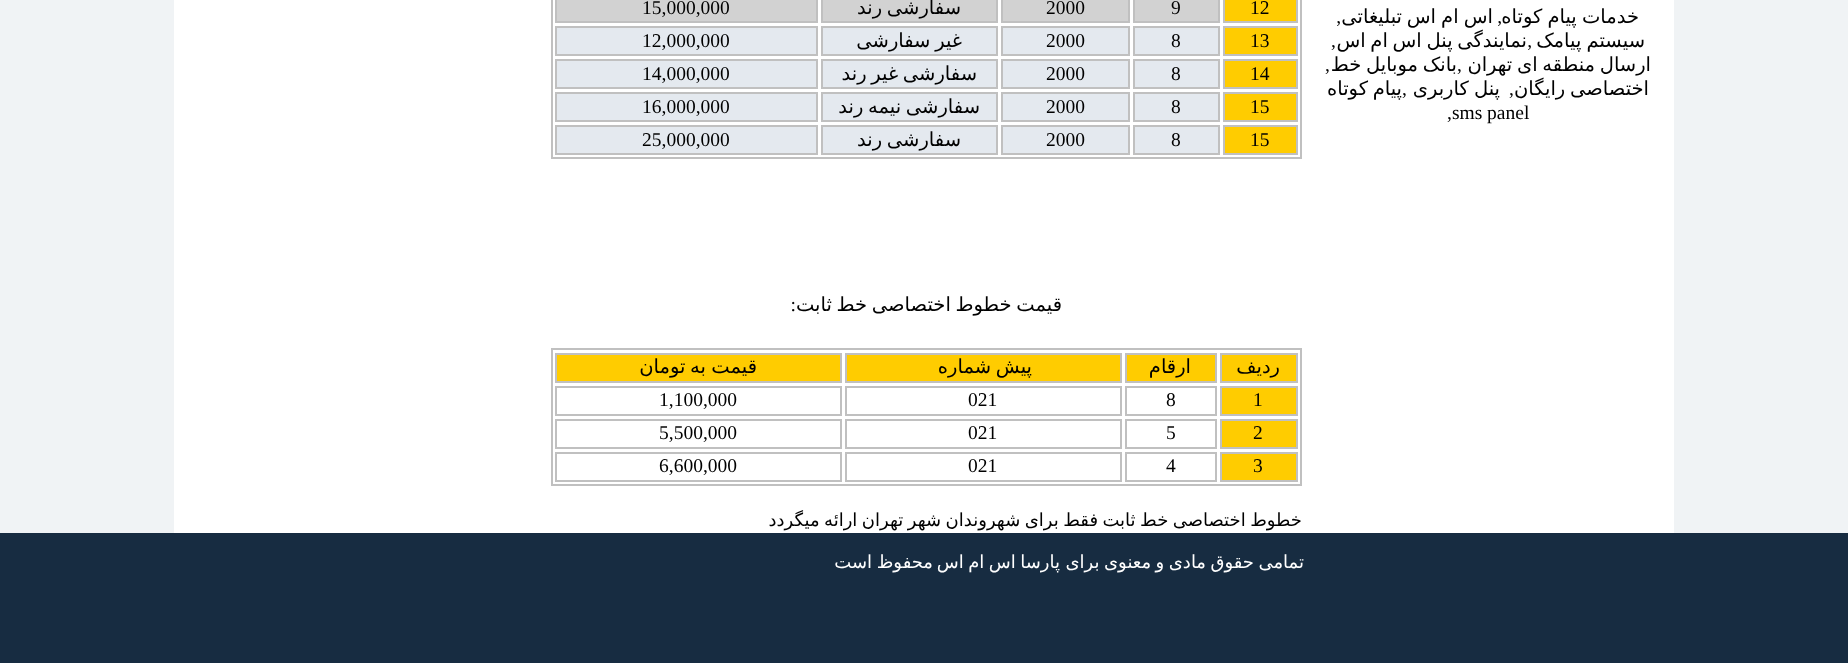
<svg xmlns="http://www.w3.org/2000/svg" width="1848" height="663">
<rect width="100%" height="100%" fill="#f0f3f5"/>
<rect x="174" width="1500" height="533" fill="#fff"/>
<text x="1639" y="23" word-spacing="-1" style="font-family:DejaVu Sans;font-size:19.5px;direction:rtl;fill:#000">خدمات پیام کوتاه</text>
<text x="1502" y="23" style="font-family:Liberation Serif;font-size:19.5px;direction:rtl;fill:#000">,</text>
<text x="1493" y="23" word-spacing="-1" style="font-family:DejaVu Sans;font-size:19.5px;direction:rtl;fill:#000">اس ام اس</text>
<text x="1402" y="23" style="font-family:DejaVu Sans;font-size:19.5px;direction:rtl;fill:#000">تبلیغاتی</text>
<text x="1341" y="23" style="font-family:Liberation Serif;font-size:19.5px;direction:rtl;fill:#000">,</text>
<text x="1645" y="47" word-spacing="-1" style="font-family:DejaVu Sans;font-size:19.5px;direction:rtl;fill:#000">سیستم پیامک</text>
<text x="1532" y="47" style="font-family:Liberation Serif;font-size:19.5px;direction:rtl;fill:#000">,</text>
<text x="1527" y="47" word-spacing="-1.5" style="font-family:DejaVu Sans;font-size:19.5px;direction:rtl;fill:#000">نمایندگی پنل اس ام اس</text>
<text x="1331" y="47" style="font-family:Liberation Serif;font-size:19.5px;fill:#000">,</text>
<text x="1651" y="71" word-spacing="-1.5" style="font-family:DejaVu Sans;font-size:19.5px;direction:rtl;fill:#000">ارسال منطقه ای تهران</text>
<text x="1457" y="71" style="font-family:Liberation Serif;font-size:19.5px;fill:#000">,</text>
<text x="1457" y="71" word-spacing="-1.5" style="font-family:DejaVu Sans;font-size:19.5px;direction:rtl;fill:#000">بانک موبایل خط</text>
<text x="1325" y="71" style="font-family:Liberation Serif;font-size:19.5px;fill:#000">,</text>
<text x="1649" y="95" word-spacing="-1.5" style="font-family:DejaVu Sans;font-size:19.5px;direction:rtl;fill:#000">اختصاصی رایگان</text>
<text x="1509" y="95" style="font-family:Liberation Serif;font-size:19.5px;fill:#000">,</text>
<text x="1500" y="95" word-spacing="-1" style="font-family:DejaVu Sans;font-size:19.5px;direction:rtl;fill:#000">پنل کاربری</text>
<text x="1402" y="95" style="font-family:Liberation Serif;font-size:19.5px;fill:#000">,</text>
<text x="1402" y="95" word-spacing="-1.5" style="font-family:DejaVu Sans;font-size:19.5px;direction:rtl;fill:#000">پیام کوتاه</text>
<text x="1447" y="119" style="font-family:Liberation Serif;font-size:19.5px;fill:#000">,sms panel</text>
<rect x="552" y="-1" width="749" height="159" fill="none" stroke="#c0c0c0" stroke-width="2"/>
<rect x="1224" y="-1" width="73" height="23" fill="#fc0" stroke="#c0c0c0" stroke-width="2"/>
<text x="1250" y="14" style="font-family:Liberation Serif;font-size:19.5px;fill:#000">12</text>
<rect x="1134" y="-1" width="85" height="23" fill="#d2d2d2" stroke="#c0c0c0" stroke-width="2"/>
<text x="1171" y="14" style="font-family:Liberation Serif;font-size:19.5px;fill:#000">9</text>
<rect x="1002" y="-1" width="127" height="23" fill="#d2d2d2" stroke="#c0c0c0" stroke-width="2"/>
<text x="1046" y="14" style="font-family:Liberation Serif;font-size:19.5px;fill:#000">2000</text>
<rect x="822" y="-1" width="175" height="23" fill="#d2d2d2" stroke="#c0c0c0" stroke-width="2"/>
<text x="961" y="14" word-spacing="-1.5" style="font-family:DejaVu Sans;font-size:19.5px;direction:rtl;fill:#000">سفارشی رند</text>
<rect x="556" y="-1" width="261" height="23" fill="#d2d2d2" stroke="#c0c0c0" stroke-width="2"/>
<text x="642" y="14" style="font-family:Liberation Serif;font-size:19.5px;fill:#000">15,000,000</text>
<rect x="1224" y="27" width="73" height="28" fill="#fc0" stroke="#c0c0c0" stroke-width="2"/>
<text x="1250" y="47" style="font-family:Liberation Serif;font-size:19.5px;fill:#000">13</text>
<rect x="1134" y="27" width="85" height="28" fill="#e4e9ef" stroke="#c0c0c0" stroke-width="2"/>
<text x="1171" y="47" style="font-family:Liberation Serif;font-size:19.5px;fill:#000">8</text>
<rect x="1002" y="27" width="127" height="28" fill="#e4e9ef" stroke="#c0c0c0" stroke-width="2"/>
<text x="1046" y="47" style="font-family:Liberation Serif;font-size:19.5px;fill:#000">2000</text>
<rect x="822" y="27" width="175" height="28" fill="#e4e9ef" stroke="#c0c0c0" stroke-width="2"/>
<text x="962" y="47" word-spacing="-1.5" style="font-family:DejaVu Sans;font-size:19.5px;direction:rtl;fill:#000">غیر سفارشی</text>
<rect x="556" y="27" width="261" height="28" fill="#e4e9ef" stroke="#c0c0c0" stroke-width="2"/>
<text x="642" y="47" style="font-family:Liberation Serif;font-size:19.5px;fill:#000">12,000,000</text>
<rect x="1224" y="60" width="73" height="28" fill="#fc0" stroke="#c0c0c0" stroke-width="2"/>
<text x="1250" y="80" style="font-family:Liberation Serif;font-size:19.5px;fill:#000">14</text>
<rect x="1134" y="60" width="85" height="28" fill="#e4e9ef" stroke="#c0c0c0" stroke-width="2"/>
<text x="1171" y="80" style="font-family:Liberation Serif;font-size:19.5px;fill:#000">8</text>
<rect x="1002" y="60" width="127" height="28" fill="#e4e9ef" stroke="#c0c0c0" stroke-width="2"/>
<text x="1046" y="80" style="font-family:Liberation Serif;font-size:19.5px;fill:#000">2000</text>
<rect x="822" y="60" width="175" height="28" fill="#e4e9ef" stroke="#c0c0c0" stroke-width="2"/>
<text x="977" y="80" word-spacing="-1.5" style="font-family:DejaVu Sans;font-size:19.5px;direction:rtl;fill:#000">سفارشی غیر رند</text>
<rect x="556" y="60" width="261" height="28" fill="#e4e9ef" stroke="#c0c0c0" stroke-width="2"/>
<text x="642" y="80" style="font-family:Liberation Serif;font-size:19.5px;fill:#000">14,000,000</text>
<rect x="1224" y="93" width="73" height="28" fill="#fc0" stroke="#c0c0c0" stroke-width="2"/>
<text x="1250" y="113" style="font-family:Liberation Serif;font-size:19.5px;fill:#000">15</text>
<rect x="1134" y="93" width="85" height="28" fill="#e4e9ef" stroke="#c0c0c0" stroke-width="2"/>
<text x="1171" y="113" style="font-family:Liberation Serif;font-size:19.5px;fill:#000">8</text>
<rect x="1002" y="93" width="127" height="28" fill="#e4e9ef" stroke="#c0c0c0" stroke-width="2"/>
<text x="1046" y="113" style="font-family:Liberation Serif;font-size:19.5px;fill:#000">2000</text>
<rect x="822" y="93" width="175" height="28" fill="#e4e9ef" stroke="#c0c0c0" stroke-width="2"/>
<text x="980" y="113" word-spacing="-1.5" style="font-family:DejaVu Sans;font-size:19.5px;direction:rtl;fill:#000">سفارشی نیمه رند</text>
<rect x="556" y="93" width="261" height="28" fill="#e4e9ef" stroke="#c0c0c0" stroke-width="2"/>
<text x="642" y="113" style="font-family:Liberation Serif;font-size:19.5px;fill:#000">16,000,000</text>
<rect x="1224" y="126" width="73" height="28" fill="#fc0" stroke="#c0c0c0" stroke-width="2"/>
<text x="1250" y="146" style="font-family:Liberation Serif;font-size:19.5px;fill:#000">15</text>
<rect x="1134" y="126" width="85" height="28" fill="#e4e9ef" stroke="#c0c0c0" stroke-width="2"/>
<text x="1171" y="146" style="font-family:Liberation Serif;font-size:19.5px;fill:#000">8</text>
<rect x="1002" y="126" width="127" height="28" fill="#e4e9ef" stroke="#c0c0c0" stroke-width="2"/>
<text x="1046" y="146" style="font-family:Liberation Serif;font-size:19.5px;fill:#000">2000</text>
<rect x="822" y="126" width="175" height="28" fill="#e4e9ef" stroke="#c0c0c0" stroke-width="2"/>
<text x="961" y="146" word-spacing="-1.5" style="font-family:DejaVu Sans;font-size:19.5px;direction:rtl;fill:#000">سفارشی رند</text>
<rect x="556" y="126" width="261" height="28" fill="#e4e9ef" stroke="#c0c0c0" stroke-width="2"/>
<text x="642" y="146" style="font-family:Liberation Serif;font-size:19.5px;fill:#000">25,000,000</text>
<text x="1062" y="311" word-spacing="-1.5" style="font-family:DejaVu Sans;font-size:19.5px;direction:rtl;fill:#000">قیمت خطوط اختصاصی خط ثابت</text>
<text x="796" y="311" style="font-family:Liberation Serif;font-size:19.5px;direction:rtl;fill:#000">:</text>
<rect x="552" y="349" width="749" height="136" fill="none" stroke="#c0c0c0" stroke-width="2"/>
<rect x="1221" y="354" width="76" height="28" fill="#fc0" stroke="#c0c0c0" stroke-width="2"/>
<text x="1280" y="373" style="font-family:DejaVu Sans;font-size:19.5px;direction:rtl;fill:#000">ردیف</text>
<rect x="1126" y="354" width="90" height="28" fill="#fc0" stroke="#c0c0c0" stroke-width="2"/>
<text x="1191" y="373" style="font-family:DejaVu Sans;font-size:19.5px;direction:rtl;fill:#000">ارقام</text>
<rect x="846" y="354" width="275" height="28" fill="#fc0" stroke="#c0c0c0" stroke-width="2"/>
<text x="1032" y="373" style="font-family:DejaVu Sans;font-size:19.5px;direction:rtl;fill:#000">پیش</text>
<text x="991" y="373" style="font-family:DejaVu Sans;font-size:19.5px;direction:rtl;fill:#000">شماره</text>
<rect x="556" y="354" width="285" height="28" fill="#fc0" stroke="#c0c0c0" stroke-width="2"/>
<text x="757" y="373" style="font-family:DejaVu Sans;font-size:19.5px;direction:rtl;fill:#000">قیمت</text>
<text x="706" y="373" word-spacing="-1.5" style="font-family:DejaVu Sans;font-size:19.5px;direction:rtl;fill:#000">به تومان</text>
<rect x="1221" y="387" width="76" height="28" fill="#fc0" stroke="#c0c0c0" stroke-width="2"/>
<text x="1253" y="406" style="font-family:Liberation Serif;font-size:19.5px;fill:#000">1</text>
<rect x="1126" y="387" width="90" height="28" fill="none" stroke="#c0c0c0" stroke-width="2"/>
<text x="1166" y="406" style="font-family:Liberation Serif;font-size:19.5px;fill:#000">8</text>
<rect x="846" y="387" width="275" height="28" fill="none" stroke="#c0c0c0" stroke-width="2"/>
<text x="968" y="406" style="font-family:Liberation Serif;font-size:19.5px;fill:#000">021</text>
<rect x="556" y="387" width="285" height="28" fill="none" stroke="#c0c0c0" stroke-width="2"/>
<text x="659" y="406" style="font-family:Liberation Serif;font-size:19.5px;fill:#000">1,100,000</text>
<rect x="1221" y="420" width="76" height="28" fill="#fc0" stroke="#c0c0c0" stroke-width="2"/>
<text x="1253" y="439" style="font-family:Liberation Serif;font-size:19.5px;fill:#000">2</text>
<rect x="1126" y="420" width="90" height="28" fill="none" stroke="#c0c0c0" stroke-width="2"/>
<text x="1166" y="439" style="font-family:Liberation Serif;font-size:19.5px;fill:#000">5</text>
<rect x="846" y="420" width="275" height="28" fill="none" stroke="#c0c0c0" stroke-width="2"/>
<text x="968" y="439" style="font-family:Liberation Serif;font-size:19.5px;fill:#000">021</text>
<rect x="556" y="420" width="285" height="28" fill="none" stroke="#c0c0c0" stroke-width="2"/>
<text x="659" y="439" style="font-family:Liberation Serif;font-size:19.5px;fill:#000">5,500,000</text>
<rect x="1221" y="453" width="76" height="28" fill="#fc0" stroke="#c0c0c0" stroke-width="2"/>
<text x="1253" y="472" style="font-family:Liberation Serif;font-size:19.5px;fill:#000">3</text>
<rect x="1126" y="453" width="90" height="28" fill="none" stroke="#c0c0c0" stroke-width="2"/>
<text x="1166" y="472" style="font-family:Liberation Serif;font-size:19.5px;fill:#000">4</text>
<rect x="846" y="453" width="275" height="28" fill="none" stroke="#c0c0c0" stroke-width="2"/>
<text x="968" y="472" style="font-family:Liberation Serif;font-size:19.5px;fill:#000">021</text>
<rect x="556" y="453" width="285" height="28" fill="none" stroke="#c0c0c0" stroke-width="2"/>
<text x="659" y="472" style="font-family:Liberation Serif;font-size:19.5px;fill:#000">6,600,000</text>
<text x="1302" y="526" word-spacing="-1.25" style="font-family:DejaVu Sans;font-size:18px;direction:rtl;fill:#000">خطوط اختصاصی خط ثابت</text>
<text x="1098" y="526" word-spacing="-1.25" style="font-family:DejaVu Sans;font-size:18px;direction:rtl;fill:#000">فقط برای شهروندان شهر تهران ارائه میگردد</text>
<rect y="533" width="1848" height="130" fill="#172c41"/>
<text x="1304" y="568" word-spacing="-1.25" style="font-family:DejaVu Sans;font-size:18px;direction:rtl;fill:#fff">تمامی حقوق مادی و معنوی برای</text>
<text x="1060" y="568" word-spacing="-1.25" style="font-family:DejaVu Sans;font-size:18px;direction:rtl;fill:#fff">پارسا اس ام اس</text>
<text x="933" y="568" word-spacing="-1" style="font-family:DejaVu Sans;font-size:18px;direction:rtl;fill:#fff">محفوظ است</text>
</svg>
